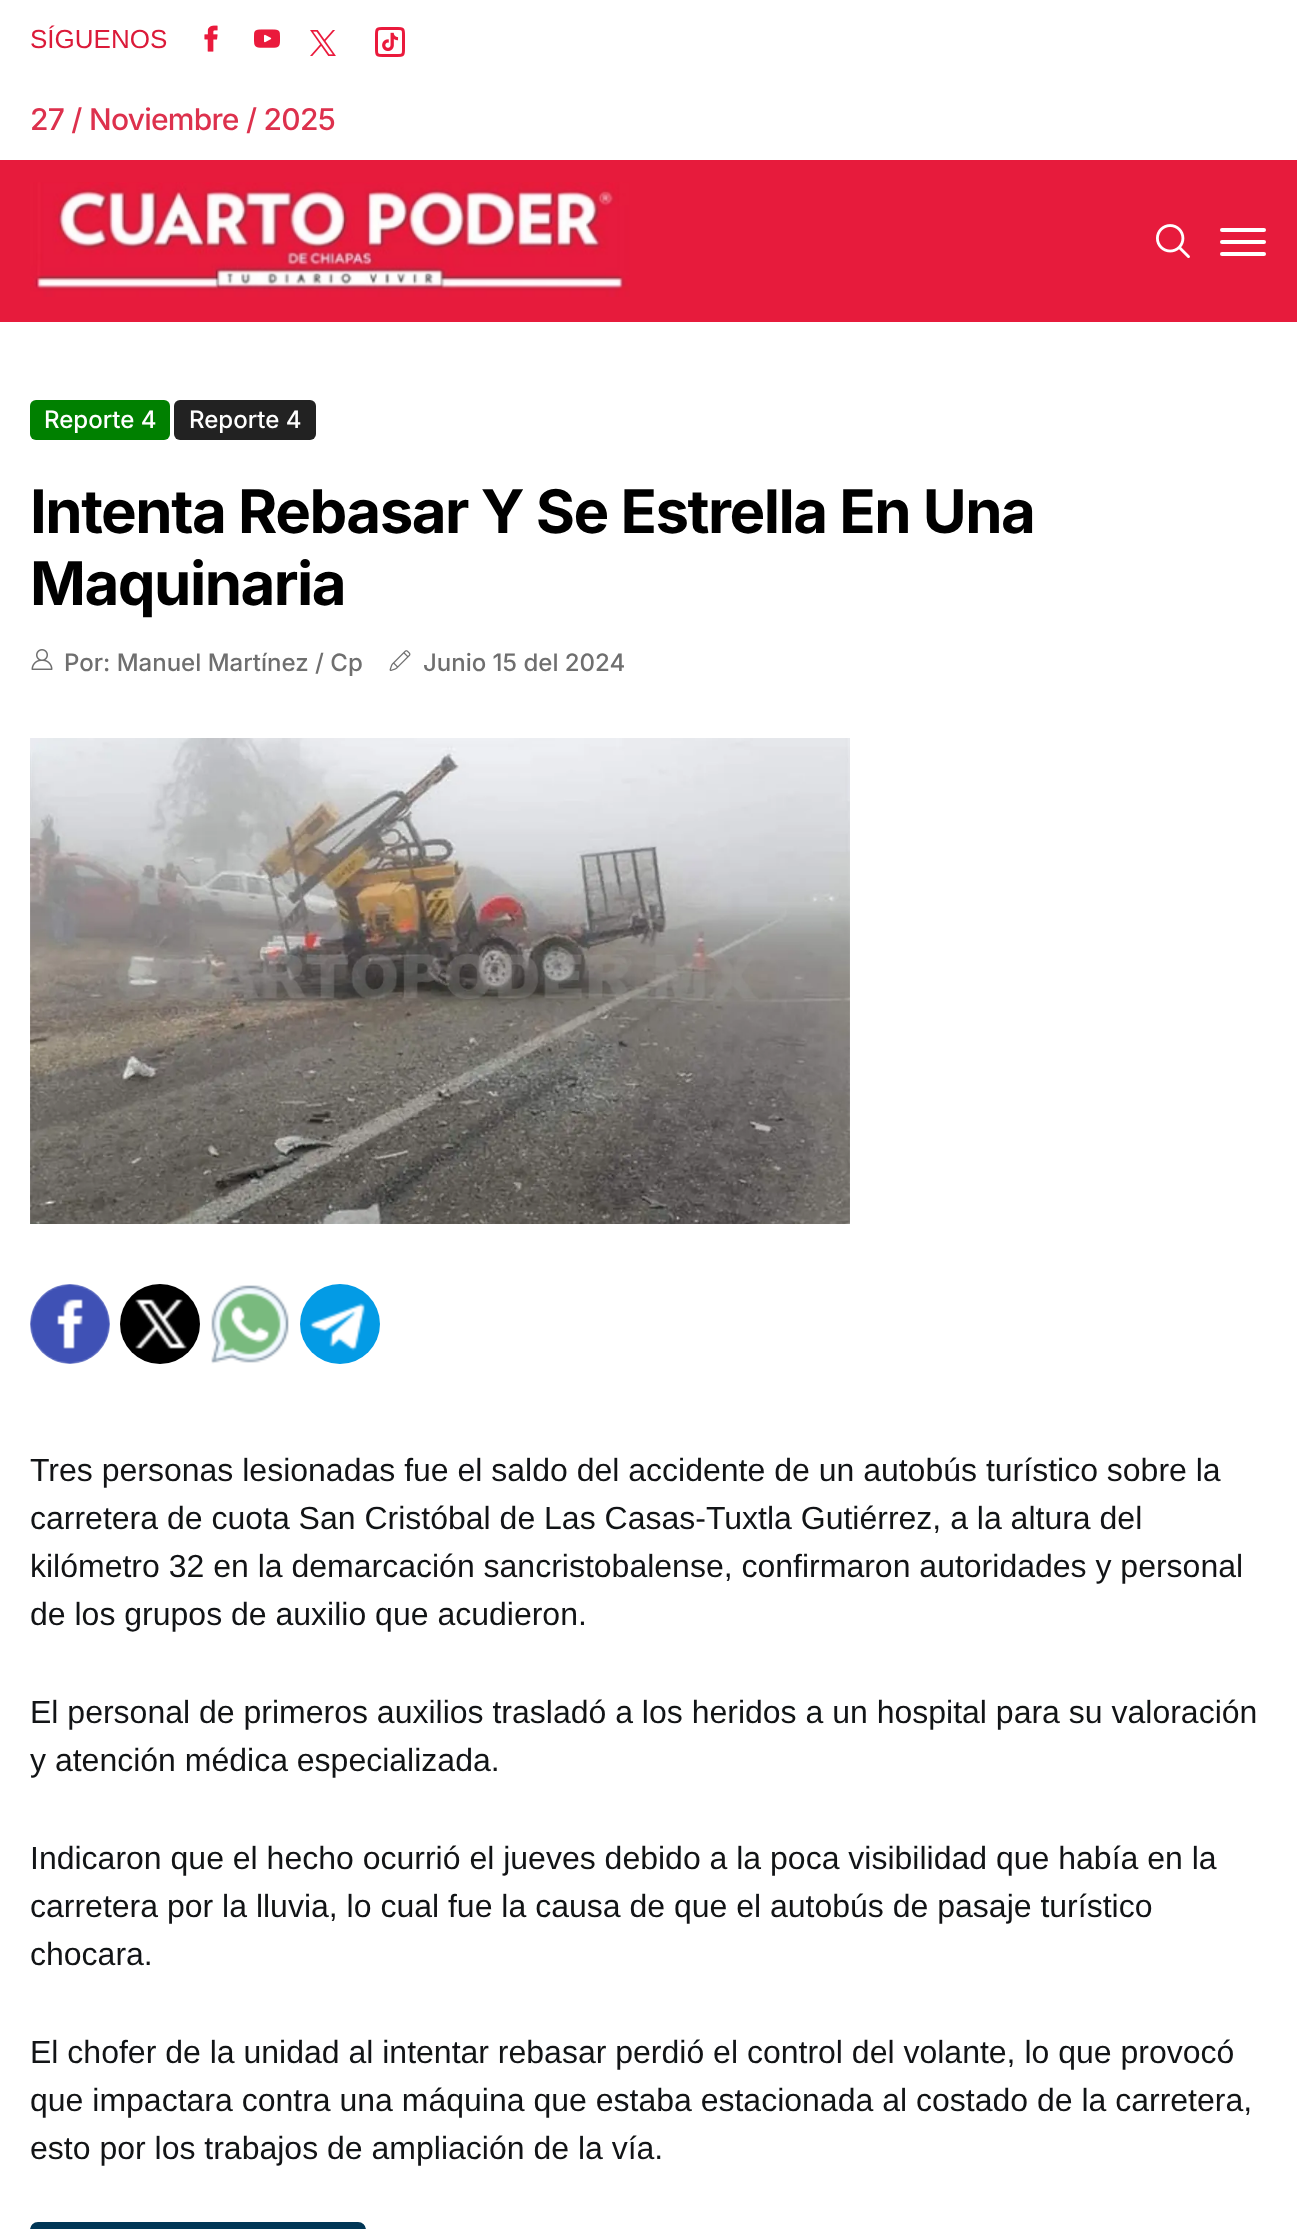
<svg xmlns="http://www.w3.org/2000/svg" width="1297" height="2229">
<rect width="100%" height="100%" fill="#fff"/>
<text x="30" y="48" style="font-family:Arimo;font-size:26px;fill:#db1a39">SÍGUENOS</text>
<image x="204" y="25" width="14" height="27" href="media/1.png"/>
<image x="254" y="29" width="26" height="19" href="media/2.png"/>
<image x="310" y="30" width="26" height="26" href="media/3.png"/>
<image x="375" y="27" width="30" height="30" href="media/4.png"/>
<text x="30" y="130" style="font-family:Inter;font-size:30px;font-weight:500;letter-spacing:-0.75px;fill:#dd314d">27 / Noviembre / 2025</text>
<rect y="160" width="1297" height="162" fill="#e71b3c"/>
<image x="30" y="182" width="600" height="115" href="media/5.png"/>
<image x="1156" y="224" width="34" height="34" href="media/6.png"/>
<rect x="1220" y="228" width="46" height="4" rx="2" fill="#fff"/>
<rect x="1220" y="240" width="46" height="4" rx="2" fill="#fff"/>
<rect x="1220" y="252" width="46" height="4" rx="2" fill="#fff"/>
<rect x="30" y="400" width="140" height="40" rx="6" fill="#008000"/>
<text x="44" y="428" style="font-family:Inter;font-size:24px;font-weight:500;fill:#fff">Reporte 4</text>
<rect x="174" y="400" width="142" height="40" rx="6" fill="#222"/>
<text x="189" y="428" style="font-family:Inter;font-size:24px;font-weight:500;fill:#fff">Reporte 4</text>
<text x="30" y="533" style="font-family:Inter;font-size:60px;font-weight:bold;letter-spacing:-1.5px;fill:#000">Intenta Rebasar Y Se Estrella En Una</text>
<text x="30" y="605" style="font-family:Inter;font-size:60px;font-weight:bold;letter-spacing:-1.5px;fill:#000">Maquinaria</text>
<image x="31" y="649" width="22" height="21" href="media/7.png"/>
<text x="64" y="671" style="font-family:Inter;font-size:24px;font-weight:500;fill:#6f6f6f">Por: Manuel Martínez / Cp</text>
<image x="389" y="650" width="22" height="21" href="media/8.png"/>
<text x="423" y="671" style="font-family:Inter;font-size:24px;font-weight:500;fill:#6f6f6f">Junio 15 del 2024</text>
<image x="30" y="738" width="820" height="486" href="media/9.png"/>
<image x="30" y="1284" width="80" height="80" href="media/10.png"/>
<image x="120" y="1284" width="80" height="80" href="media/11.png"/>
<image x="211" y="1285" width="78" height="79" href="media/12.png"/>
<image x="300" y="1284" width="80" height="80" href="media/13.png"/>
<text x="30" y="1481" style="font-family:Arimo;font-size:32px;fill:#121416">Tres personas lesionadas fue el saldo del accidente de un autobús turístico sobre la</text>
<text x="30" y="1529" style="font-family:Arimo;font-size:32px;fill:#121416">carretera de cuota San Cristóbal de Las Casas-Tuxtla Gutiérrez, a la altura del</text>
<text x="30" y="1577" style="font-family:Arimo;font-size:32px;fill:#121416">kilómetro 32 en la demarcación sancristobalense, confirmaron autoridades y personal</text>
<text x="30" y="1625" style="font-family:Arimo;font-size:32px;fill:#121416">de los grupos de auxilio que acudieron.</text>
<text x="30" y="1723" style="font-family:Arimo;font-size:32px;fill:#121416">El personal de primeros auxilios trasladó a los heridos a un hospital para su valoración</text>
<text x="30" y="1771" style="font-family:Arimo;font-size:32px;fill:#121416">y atención médica especializada.</text>
<text x="30" y="1869" style="font-family:Arimo;font-size:32px;fill:#121416">Indicaron que el hecho ocurrió el jueves debido a la poca visibilidad que había en la</text>
<text x="30" y="1917" style="font-family:Arimo;font-size:32px;fill:#121416">carretera por la lluvia, lo cual fue la causa de que el autobús de pasaje turístico</text>
<text x="30" y="1965" style="font-family:Arimo;font-size:32px;fill:#121416">chocara.</text>
<text x="30" y="2063" style="font-family:Arimo;font-size:32px;fill:#121416">El chofer de la unidad al intentar rebasar perdió el control del volante, lo que provocó</text>
<text x="30" y="2111" style="font-family:Arimo;font-size:32px;fill:#121416">que impactara contra una máquina que estaba estacionada al costado de la carretera,</text>
<text x="30" y="2159" style="font-family:Arimo;font-size:32px;fill:#121416">esto por los trabajos de ampliación de la vía.</text>
<rect x="31" y="2223" width="334" height="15" rx="7" fill="#003656" stroke="#003656" stroke-width="2"/>
</svg>
